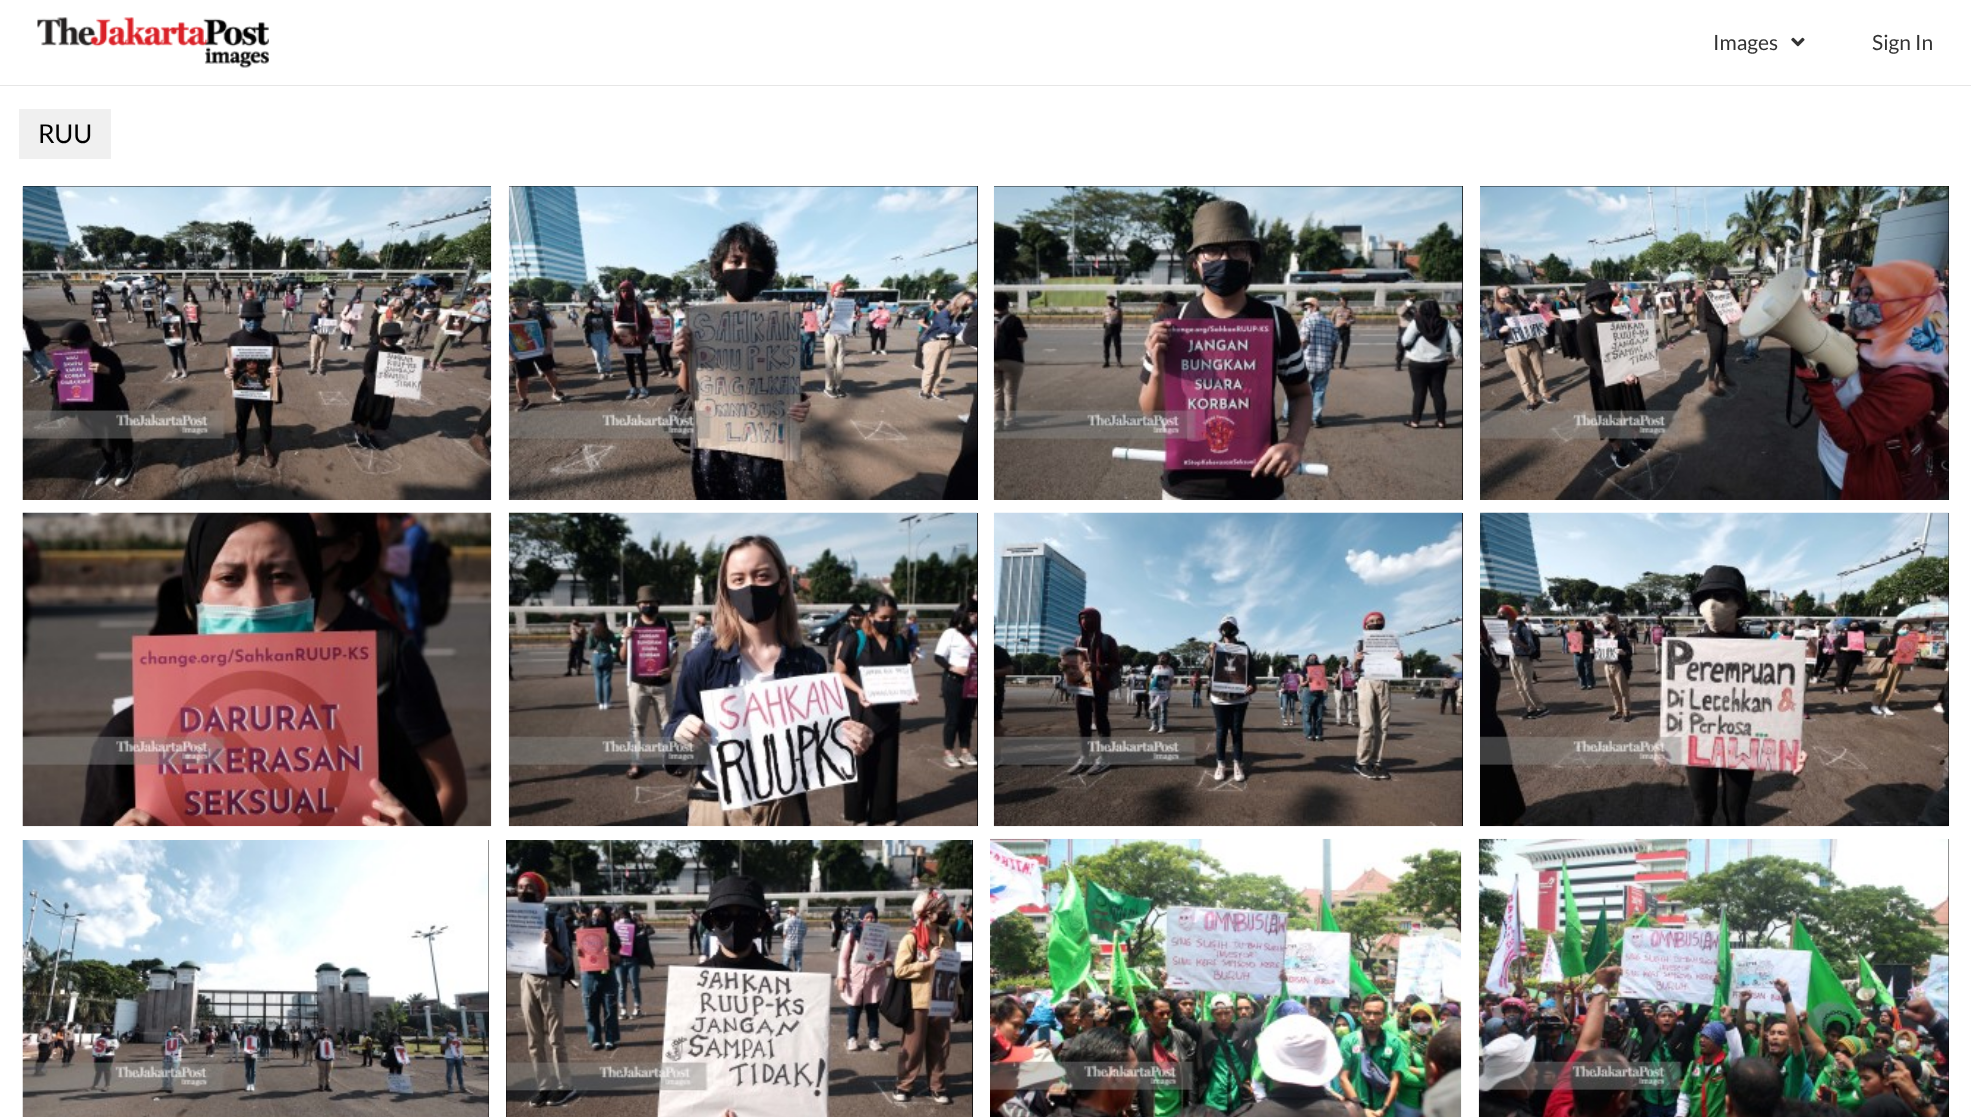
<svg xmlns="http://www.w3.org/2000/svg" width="1971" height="1117">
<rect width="100%" height="100%" fill="#fff"/>
<rect y="85" width="1971" height="1" fill="#e6e6e6"/>
<image x="37" y="17" width="232" height="51" href="media/1.png"/>
<text x="1713" y="50" style="font-family:Lato;font-size:21px;fill:#333">Images</text>
<image x="1791" y="37" width="14" height="10" href="media/2.png"/>
<text x="1872" y="50" style="font-family:Lato;font-size:21px;fill:#333">Sign In</text>
<rect x="19" y="109" width="92" height="50" fill="#f0f0f0"/>
<text x="38" y="143" style="font-family:Lato;font-size:26px;fill:#000">RUU</text>
<rect x="23" y="186" width="468" height="1" fill="#000"/>
<image x="22" y="186" width="470" height="314" href="media/3.png"/>
<rect x="509" y="186" width="469" height="314" fill="#000"/>
<image x="508" y="186" width="470" height="314" href="media/4.png"/>
<rect x="994" y="186" width="469" height="314" fill="#000"/>
<image x="993" y="186" width="470" height="314" href="media/5.png"/>
<rect x="1480" y="186" width="469" height="314" fill="#000"/>
<image x="1480" y="186" width="469" height="314" href="media/6.png"/>
<image x="22" y="512" width="470" height="315" href="media/7.png"/>
<rect x="977" y="513" width="1" height="313" fill="#000"/>
<image x="508" y="512" width="470" height="315" href="media/8.png"/>
<rect x="1462" y="513" width="1" height="313" fill="#000"/>
<image x="993" y="512" width="470" height="315" href="media/9.png"/>
<rect x="1948" y="513" width="1" height="313" fill="#000"/>
<image x="1480" y="512" width="469" height="315" href="media/10.png"/>
<rect x="488" y="840" width="1" height="277" fill="#000"/>
<image x="22" y="840" width="467" height="277" href="media/11.png"/>
<rect x="506" y="840" width="467" height="277" fill="#000"/>
<image x="506" y="840" width="467" height="277" href="media/12.png"/>
<image x="990" y="838" width="472" height="279" href="media/13.png"/>
<rect x="1948" y="839" width="1" height="278" fill="#000"/>
<image x="1478" y="838" width="471" height="279" href="media/14.png"/>
</svg>
